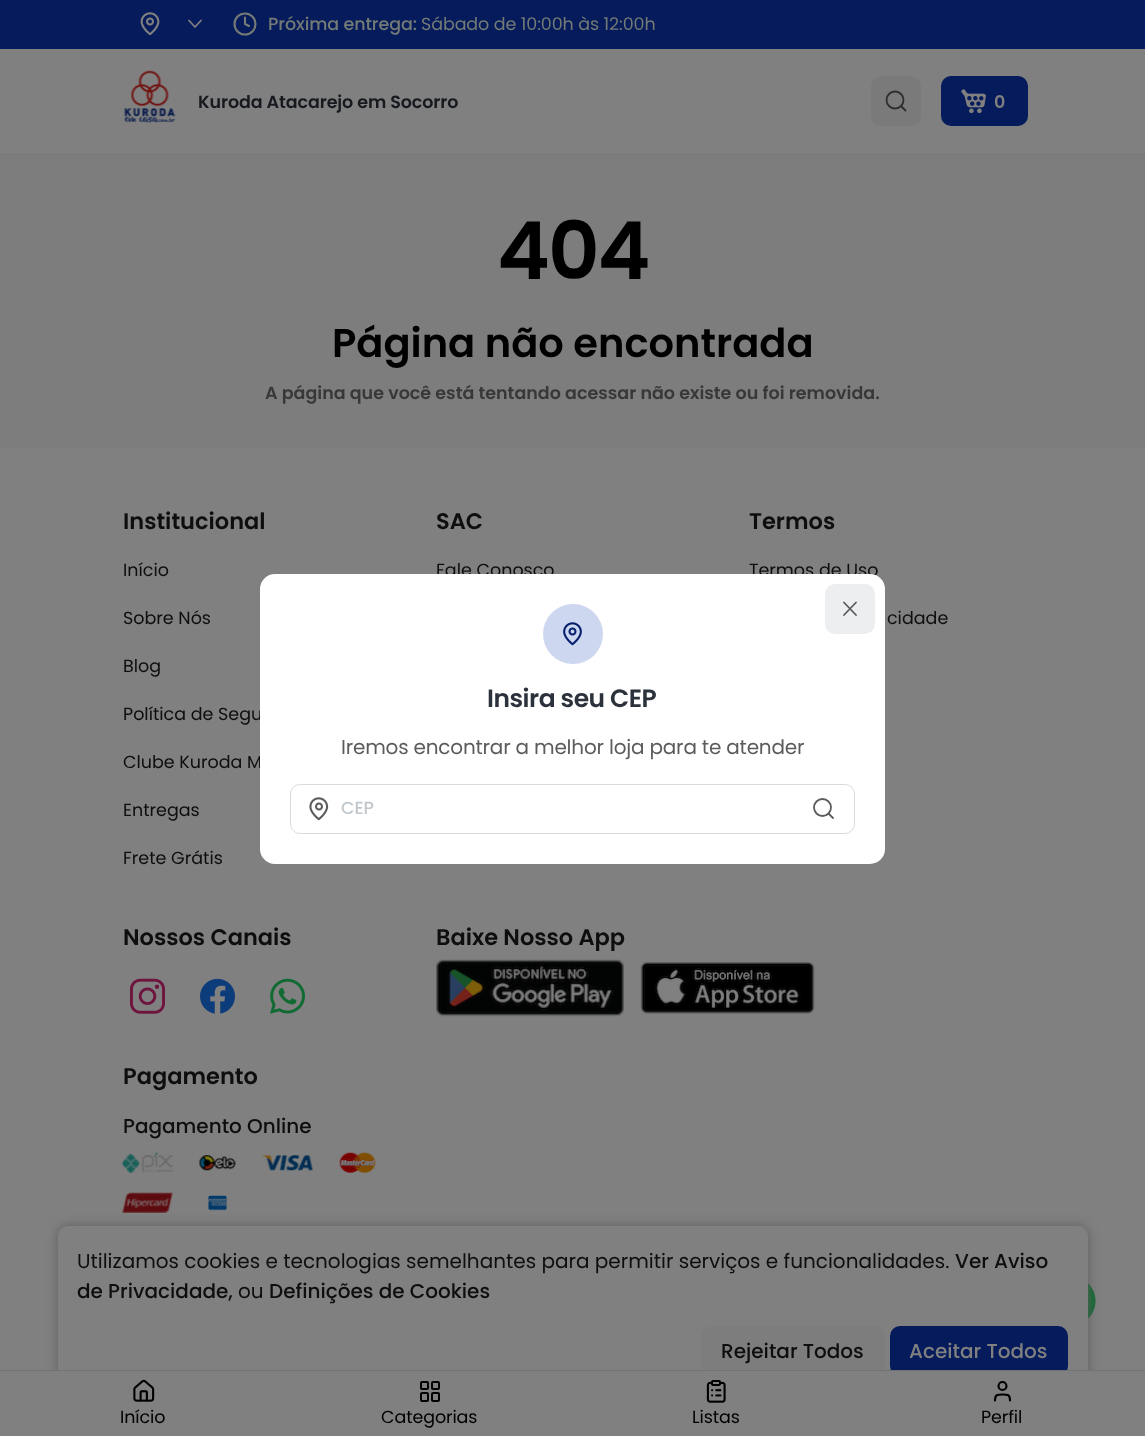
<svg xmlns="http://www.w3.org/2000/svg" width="1145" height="1436">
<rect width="100%" height="100%" fill="#7d7d7d"/>
<rect width="1145" height="49" fill="#051b5b"/>
<image x="140" y="12" width="20" height="24" href="media/1.png"/>
<path d="M189 20.5l6 6.5l6-6.5" fill="none" stroke="#808080" stroke-width="1.8" stroke-linecap="round" stroke-linejoin="round"/>
<circle cx="245" cy="24" r="10.5" fill="none" stroke="#747b76" stroke-width="2.1"/>
<path d="M245 17.5v6.5l4 2" fill="none" stroke="#747b76" stroke-width="2.1" stroke-linecap="round" stroke-linejoin="round"/>
<text x="268" y="30" style="font-family:Poppins;font-size:17.5px;font-weight:500;letter-spacing:-0.1px;fill:#747b76">Próxima entrega:</text>
<text x="421" y="30" style="font-family:Poppins;font-size:17.5px;letter-spacing:-0.1px;fill:#747b76">Sábado de 10:00h às 12:00h</text>
<rect y="49" width="1145" height="105" fill="#808080"/>
<rect y="154" width="1145" height="1" fill="#767778"/>
<image x="124" y="70" width="52" height="53" href="media/2.png"/>
<text x="198" y="108" style="font-family:Poppins;font-size:17.5px;font-weight:600;letter-spacing:-0.1px;fill:#16191e">Kuroda Atacarejo em Socorro</text>
<rect x="871" y="76" width="50" height="50" rx="10" fill="#7a7a7b"/>
<circle cx="895" cy="100" r="8.5" fill="none" stroke="#2e2e2e" stroke-width="1.8"/>
<path d="M905.5 110.5l-4.5-4.5" fill="none" stroke="#2e2e2e" stroke-width="1.8" stroke-linecap="round" stroke-linejoin="round"/>
<rect x="941" y="76" width="87" height="50" rx="10" fill="#051b5b"/>
<image x="961" y="89" width="25" height="25" href="media/3.png"/>
<text x="994" y="108" style="font-family:Poppins;font-size:17.5px;font-weight:600;letter-spacing:-0.1px;fill:#808080">0</text>
<text x="497" y="279" style="font-family:Poppins;font-size:80px;font-weight:600;letter-spacing:-2px;fill:#000">404</text>
<text x="332" y="357" style="font-family:Poppins;font-size:40px;font-weight:600;fill:#000">Página não encontrada</text>
<text x="265" y="399" style="font-family:Poppins;font-size:17.5px;font-weight:600;fill:#383838">A página que você está tentando acessar não existe ou foi removida.</text>
<rect y="448" width="1145" height="922" fill="#808080"/>
<text x="123" y="529" style="font-family:Poppins;font-size:22.5px;font-weight:600;fill:#0e0e0e">Institucional</text>
<text x="123" y="576" style="font-family:Poppins;font-size:17.5px;fill:#0e0e0e">Início</text>
<text x="123" y="624" style="font-family:Poppins;font-size:17.5px;fill:#0e0e0e">Sobre Nós</text>
<text x="123" y="672" style="font-family:Poppins;font-size:17.5px;fill:#0e0e0e">Blog</text>
<text x="123" y="720" style="font-family:Poppins;font-size:17.5px;fill:#0e0e0e">Política de Segu</text>
<text x="123" y="768" style="font-family:Poppins;font-size:17.5px;fill:#0e0e0e">Clube Kuroda M</text>
<text x="123" y="816" style="font-family:Poppins;font-size:17.5px;fill:#0e0e0e">Entregas</text>
<text x="123" y="864" style="font-family:Poppins;font-size:17.5px;fill:#0e0e0e">Frete Grátis</text>
<text x="436" y="529" style="font-family:Poppins;font-size:22.5px;font-weight:600;fill:#0e0e0e">SAC</text>
<text x="436" y="576" style="font-family:Poppins;font-size:17.5px;fill:#0e0e0e">Fale Conosco</text>
<text x="749" y="529" style="font-family:Poppins;font-size:22.5px;font-weight:600;fill:#0e0e0e">Termos</text>
<text x="749" y="576" style="font-family:Poppins;font-size:17.5px;fill:#0e0e0e">Termos de Uso</text>
<text x="887" y="624" style="font-family:Poppins;font-size:17.5px;fill:#0e0e0e">cidade</text>
<text x="123" y="945" style="font-family:Poppins;font-size:22.5px;font-weight:600;fill:#0e0e0e">Nossos Canais</text>
<image x="130" y="978" width="35" height="36" href="media/4.png"/>
<image x="200" y="978" width="35" height="36" href="media/5.png"/>
<image x="270" y="978" width="35" height="36" href="media/6.png"/>
<text x="123" y="1084" style="font-family:Poppins;font-size:22.5px;font-weight:600;fill:#0e0e0e">Pagamento</text>
<text x="123" y="1133" style="font-family:Poppins;font-size:20px;font-weight:500;fill:#0e0e0e">Pagamento Online</text>
<image x="122" y="1152" width="51" height="21" href="media/7.png"/>
<image x="199" y="1155" width="37" height="16" href="media/8.png"/>
<image x="262" y="1155" width="51" height="16" href="media/9.png"/>
<image x="339" y="1152" width="37" height="21" href="media/10.png"/>
<image x="122" y="1192" width="51" height="21" href="media/11.png"/>
<image x="208" y="1195" width="19" height="16" href="media/12.png"/>
<text x="436" y="945" style="font-family:Poppins;font-size:22.5px;font-weight:600;fill:#0e0e0e">Baixe Nosso App</text>
<image x="436" y="959" width="188" height="58" href="media/13.png"/>
<image x="640" y="962" width="175" height="52" href="media/14.png"/>
<rect x="260" y="574" width="625" height="290" rx="15" fill="#fff"/>
<rect x="825" y="584" width="50" height="50" rx="10" fill="#eceef0"/>
<path d="M856 602.5l-12 12.5m0-12.5l12 12.5" fill="none" stroke="#5c5c5c" stroke-width="1.8" stroke-linecap="round" stroke-linejoin="round"/>
<circle cx="573" cy="634" r="30" fill="#ced7f0"/>
<image x="563" y="622" width="19" height="24" href="media/15.png"/>
<text x="487" y="707" style="font-family:Poppins;font-size:25px;font-weight:600;letter-spacing:-0.5px;fill:#2b323b">Insira seu CEP</text>
<text x="341" y="754" style="font-family:Poppins;font-size:20px;letter-spacing:-0.2px;fill:#5c5c5c">Iremos encontrar a melhor loja para te atender</text>
<rect x="290.5" y="784.5" width="564" height="49" rx="9.5" fill="none" stroke="#d7dbdf"/>
<image x="309" y="797" width="20" height="24" href="media/16.png"/>
<text x="341" y="814" style="font-family:Poppins;font-size:17.5px;font-weight:500;letter-spacing:-0.1px;fill:#c1c8cd">CEP</text>
<circle cx="822.5" cy="807.5" r="8.5" fill="none" stroke="#5c5c5c" stroke-width="1.8"/>
<path d="M833 818l-4.5-4.5" fill="none" stroke="#5c5c5c" stroke-width="1.8" stroke-linecap="round" stroke-linejoin="round"/>
<circle cx="1070.5" cy="1301.5" r="27.5" fill="#136a33"/>
<image x="1088" y="1276" width="10" height="50" href="media/17.png"/>
<rect x="58" y="1226" width="1030" height="170" rx="10" fill="#5e5e5e" filter="blur(6px)"/>
<rect x="58" y="1226" width="1030" height="170" rx="10" fill="#808080"/>
<text x="77" y="1268" style="font-family:Poppins;font-size:20px;fill:#0e0e0e">Utilizamos cookies e tecnologias semelhantes para permitir serviços e funcionalidades.</text>
<text x="955" y="1268" style="font-family:Poppins;font-size:20px;font-weight:500;fill:#0e0e0e">Ver Aviso</text>
<text x="77" y="1298" style="font-family:Poppins;font-size:20px;font-weight:500;fill:#0e0e0e">de Privacidade,</text>
<text x="238" y="1298" style="font-family:Poppins;font-size:20px;fill:#0e0e0e">ou</text>
<text x="269" y="1298" style="font-family:Poppins;font-size:20px;font-weight:500;fill:#0e0e0e">Definições de Cookies</text>
<rect x="701" y="1326" width="184" height="50" rx="10" fill="#7d7d7d"/>
<text x="721" y="1358" style="font-family:Poppins;font-size:20px;font-weight:500;fill:#0e0e0e">Rejeitar Todos</text>
<rect x="890" y="1326" width="178" height="50" rx="10" fill="#051b5b"/>
<text x="909" y="1358" style="font-family:Poppins;font-size:20px;font-weight:500;fill:#808080">Aceitar Todos</text>
<rect y="1371" width="1145" height="65" fill="#808080"/>
<rect y="1370" width="1145" height="1" fill="#707273"/>
<image x="133" y="1379" width="22" height="23" href="media/18.png"/>
<text x="120" y="1423" style="font-family:Poppins;font-size:17.5px;letter-spacing:-0.1px;fill:#000">Início</text>
<rect x="421" y="1382" width="7" height="7" rx="1" fill="none" stroke="#000" stroke-width="2"/>
<rect x="432" y="1382" width="7" height="7" rx="1" fill="none" stroke="#000" stroke-width="2"/>
<rect x="432" y="1393" width="7" height="8" rx="1" fill="none" stroke="#000" stroke-width="2"/>
<rect x="421" y="1393" width="7" height="8" rx="1" fill="none" stroke="#000" stroke-width="2"/>
<text x="381" y="1423" style="font-family:Poppins;font-size:17.5px;letter-spacing:-0.1px;fill:#000">Categorias</text>
<image x="706" y="1380" width="20" height="23" href="media/19.png"/>
<text x="692" y="1423" style="font-family:Poppins;font-size:17.5px;letter-spacing:-0.1px;fill:#000">Listas</text>
<path d="M1010 1400.5c0-6-2-6-7.5-6c-5.5 0-7.5 0-7.5 6" fill="none" stroke="#000" stroke-width="2.1" stroke-linecap="round" stroke-linejoin="round"/>
<circle cx="1002.5" cy="1386" r="4" fill="none" stroke="#000" stroke-width="2.1"/>
<text x="981" y="1423" style="font-family:Poppins;font-size:17.5px;letter-spacing:-0.1px;fill:#000">Perfil</text>
</svg>
